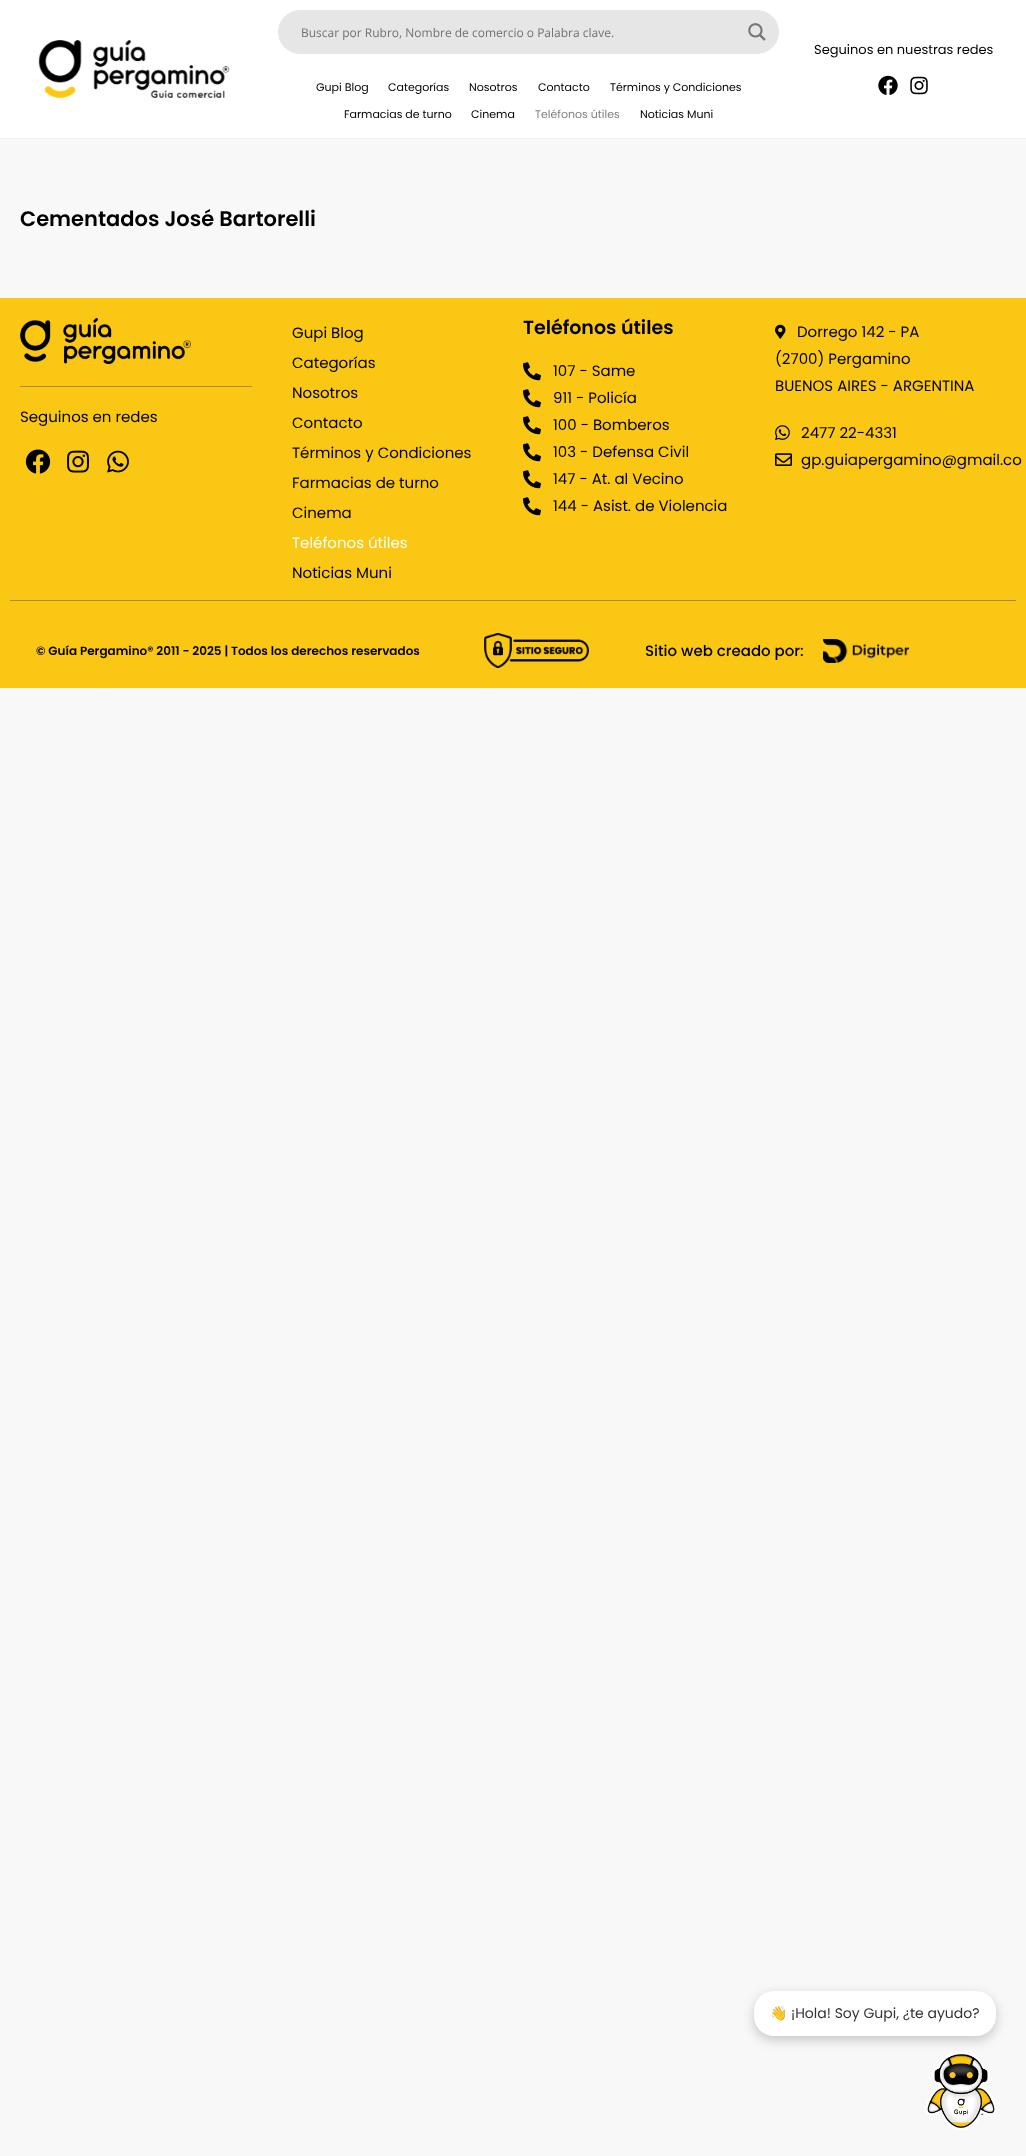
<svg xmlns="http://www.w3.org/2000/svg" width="1026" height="2156">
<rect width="100%" height="100%" fill="#f9f8f9"/>
<rect width="1026" height="138" fill="#fff"/>
<rect y="138" width="1026" height="1" fill="#f1f1f1"/>
<image x="38" y="40" width="192" height="58" href="media/1.png"/>
<rect x="278" y="10" width="501" height="44" rx="22" fill="#e6e6e6"/>
<text x="301" y="37" style="font-family:Open Sans;font-size:12px;fill:#717171">Buscar por Rubro, Nombre de comercio o Palabra clave.</text>
<image x="748" y="23" width="18" height="18" href="media/2.png"/>
<text x="316" y="91" style="font-family:Poppins;font-size:11px;fill:#000">Gupi Blog</text>
<text x="388" y="91" style="font-family:Poppins;font-size:11px;fill:#000">Categorías</text>
<text x="469" y="91" style="font-family:Poppins;font-size:11px;fill:#000">Nosotros</text>
<text x="538" y="91" style="font-family:Poppins;font-size:11px;fill:#000">Contacto</text>
<text x="610" y="91" style="font-family:Poppins;font-size:11px;fill:#000">Términos y Condiciones</text>
<text x="344" y="118" style="font-family:Poppins;font-size:11px;fill:#000">Farmacias de turno</text>
<text x="471" y="118" style="font-family:Poppins;font-size:11px;fill:#000">Cinema</text>
<text x="535" y="118" style="font-family:Poppins;font-size:11px;fill:#818181">Teléfonos útiles</text>
<text x="640" y="118" style="font-family:Poppins;font-size:11px;fill:#000">Noticias Muni</text>
<text x="814" y="54" style="font-family:Poppins;font-size:13px;fill:#000">Seguinos en nuestras redes</text>
<image x="878" y="75" width="20" height="20" href="media/3.png"/>
<image x="910" y="76" width="18" height="19" href="media/4.png"/>
<text x="20" y="226" style="font-family:Poppins;font-size:21px;font-weight:600;fill:#000">Cementados José Bartorelli</text>
<rect y="298" width="1026" height="390" fill="#fac814"/>
<image x="20" y="318" width="171" height="46" href="media/5.png"/>
<rect x="20" y="386" width="232" height="1" fill="#b28b00"/>
<text x="20" y="422" style="font-family:Poppins;font-size:15px;fill:#000">Seguinos en redes</text>
<image x="25" y="449" width="26" height="25" href="media/6.png"/>
<image x="67" y="450" width="22" height="23" href="media/7.png"/>
<image x="107" y="450" width="22" height="23" href="media/8.png"/>
<text x="292" y="338" style="font-family:Poppins;font-size:15px;fill:#000">Gupi Blog</text>
<text x="292" y="368" style="font-family:Poppins;font-size:15px;fill:#000">Categorías</text>
<text x="292" y="398" style="font-family:Poppins;font-size:15px;fill:#000">Nosotros</text>
<text x="292" y="428" style="font-family:Poppins;font-size:15px;fill:#000">Contacto</text>
<text x="292" y="458" style="font-family:Poppins;font-size:15px;fill:#000">Términos y Condiciones</text>
<text x="292" y="488" style="font-family:Poppins;font-size:15px;fill:#000">Farmacias de turno</text>
<text x="292" y="518" style="font-family:Poppins;font-size:15px;fill:#000">Cinema</text>
<text x="292" y="548" style="font-family:Poppins;font-size:15px;fill:#fff">Teléfonos útiles</text>
<text x="292" y="578" style="font-family:Poppins;font-size:15px;fill:#000">Noticias Muni</text>
<text x="523" y="334" style="font-family:Poppins;font-size:19px;font-weight:600;fill:#000">Teléfonos útiles</text>
<image x="523" y="362" width="18" height="19" href="media/9.png"/>
<text x="553" y="376" style="font-family:Poppins;font-size:15px;fill:#000">107 - Same</text>
<image x="523" y="389" width="18" height="19" href="media/9.png"/>
<text x="553" y="403" style="font-family:Poppins;font-size:15px;fill:#000">911 - Policía</text>
<image x="523" y="416" width="18" height="19" href="media/9.png"/>
<text x="553" y="430" style="font-family:Poppins;font-size:15px;fill:#000">100 - Bomberos</text>
<image x="523" y="443" width="18" height="19" href="media/9.png"/>
<text x="553" y="457" style="font-family:Poppins;font-size:15px;fill:#000">103 - Defensa Civil</text>
<image x="523" y="470" width="18" height="19" href="media/9.png"/>
<text x="553" y="484" style="font-family:Poppins;font-size:15px;fill:#000">147 - At. al Vecino</text>
<image x="523" y="497" width="18" height="19" href="media/9.png"/>
<text x="553" y="511" style="font-family:Poppins;font-size:15px;fill:#000">144 - Asist. de Violencia</text>
<image x="775" y="324" width="11" height="15" href="media/10.png"/>
<text x="797" y="337" style="font-family:Poppins;font-size:15px;fill:#000">Dorrego 142 - PA</text>
<text x="775" y="364" style="font-family:Poppins;font-size:15px;fill:#000">(2700) Pergamino</text>
<text x="775" y="391" style="font-family:Poppins;font-size:15px;fill:#000">BUENOS AIRES - ARGENTINA</text>
<image x="775" y="425" width="15" height="15" href="media/11.png"/>
<text x="801" y="438" style="font-family:Poppins;font-size:15px;fill:#000">2477 22-4331</text>
<image x="775" y="453" width="17" height="13" href="media/12.png"/>
<text x="801" y="465" style="font-family:Poppins;font-size:15px;fill:#000">gp.guiapergamino@gmail.co</text>
<rect x="10" y="600" width="1006" height="1" fill="#b28b00"/>
<text x="36" y="655" style="font-family:Poppins;font-size:12px;font-weight:600;fill:#000">© Guía Pergamino® 2011 - 2025 | Todos los derechos reservados</text>
<image x="484" y="633" width="105" height="35" href="media/13.png"/>
<text x="645" y="656" style="font-family:Poppins;font-size:15px;font-weight:500;fill:#000">Sitio web creado por:</text>
<image x="823" y="639" width="86" height="24" href="media/14.png"/>
<rect x="754" y="1995" width="242" height="45" rx="20" fill="#00000033" filter="blur(6px)"/>
<rect x="754" y="1991" width="242" height="45" rx="20" fill="#fff"/>
<text x="770" y="2018" style="font-family:Noto Color Emoji;font-size:14px;fill:#333">👋</text>
<text x="791" y="2018" style="font-family:Poppins;font-size:14px;fill:#333">¡Hola! Soy Gupi, ¿te ayudo?</text>
<image x="980" y="2113" width="4" height="2" href="media/16.png"/>
<image x="925" y="2052" width="72" height="78" href="media/15.png"/>
</svg>
